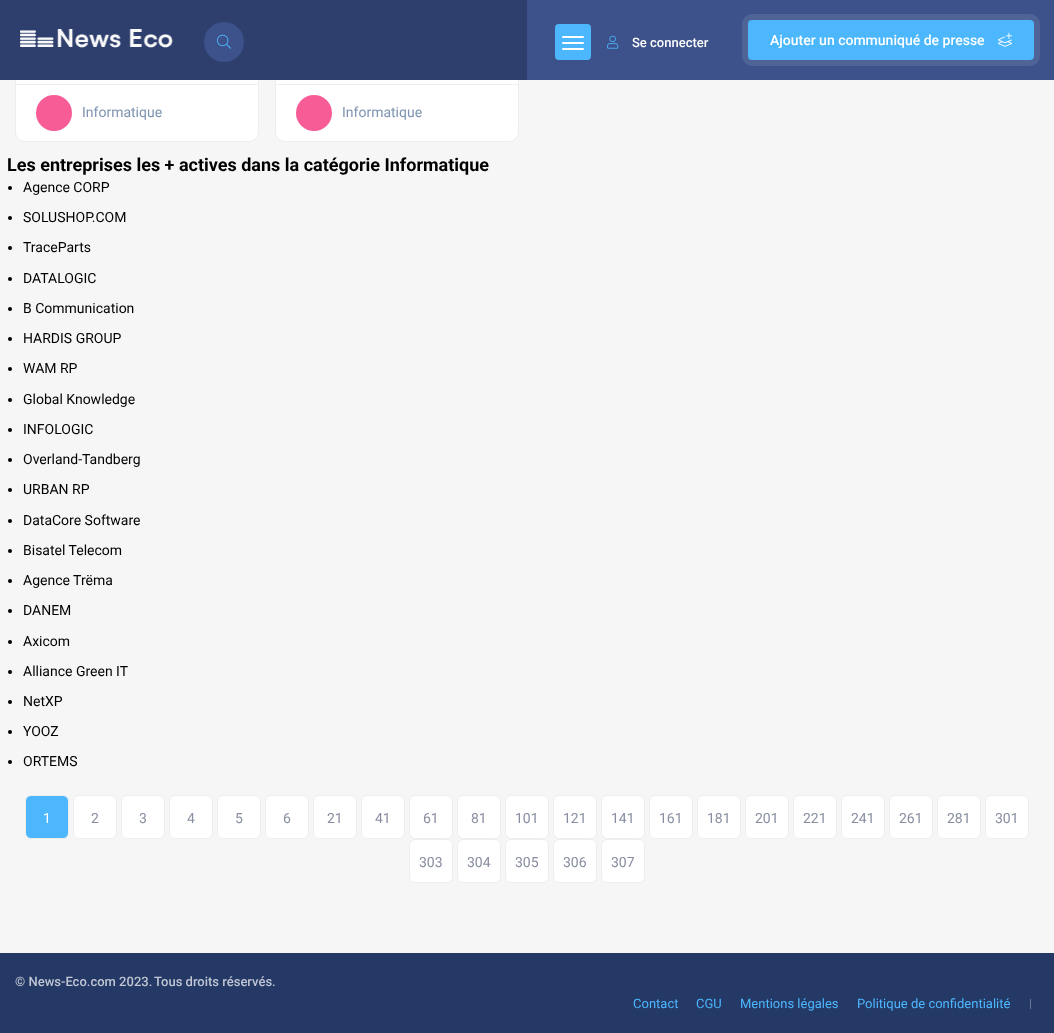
<svg xmlns="http://www.w3.org/2000/svg" width="1054" height="1033">
<rect width="100%" height="100%" fill="#f6f6f6"/>
<rect x="15.5" y="-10.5" width="243" height="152" rx="9.5" fill="#fff" stroke="#eee"/>
<rect x="275.5" y="-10.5" width="243" height="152" rx="9.5" fill="#fff" stroke="#eee"/>
<rect width="527" height="80" fill="#2e3f6e"/>
<circle cx="224" cy="42" r="20" fill="#3d528b"/>
<image x="217" y="34" width="14" height="15" href="media/1.png"/>
<rect x="527" width="527" height="80" fill="#3d528b"/>
<image x="20" y="29" width="153" height="19" href="media/2.png"/>
<rect x="555" y="24" width="36" height="36" rx="4" fill="#4db7fe"/>
<rect x="562" y="36" width="22" height="2" rx="1" fill="#fff"/>
<rect x="562" y="42" width="22" height="2" rx="1" fill="#fff"/>
<rect x="562" y="48" width="22" height="2" rx="1" fill="#fff"/>
<image x="607" y="35" width="12" height="14" href="media/3.png"/>
<text x="632" y="47" style="font-family:Roboto;font-size:13px;font-weight:500;fill:#fff">Se connecter</text>
<rect x="745" y="17" width="292" height="46" rx="7" fill="none" stroke="#506397" stroke-width="6"/>
<rect x="748" y="20" width="286" height="40" rx="4" fill="#4db7fe"/>
<text x="770" y="45" style="font-family:Roboto;font-size:14px;font-weight:500;fill:#fff">Ajouter un communiqué de presse</text>
<image x="998" y="32" width="14" height="15" href="media/4.png"/>
<rect x="16" y="84" width="242" height="1" fill="#eee"/>
<circle cx="54" cy="113" r="18" fill="#f75c96"/>
<text x="82" y="117" style="font-family:Roboto;font-size:14px;fill:#7d93b2">Informatique</text>
<rect x="276" y="84" width="242" height="1" fill="#eee"/>
<circle cx="314" cy="113" r="18" fill="#f75c96"/>
<text x="342" y="117" style="font-family:Roboto;font-size:14px;fill:#7d93b2">Informatique</text>
<text x="7" y="171" style="font-family:Roboto;font-size:18px;font-weight:bold;fill:#000">Les entreprises les + actives dans la catégorie Informatique</text>
<circle cx="10" cy="188" r="2" fill="#000"/>
<text x="23" y="192" style="font-family:Roboto;font-size:14px;fill:#000">Agence CORP</text>
<circle cx="10" cy="218" r="2" fill="#000"/>
<text x="23" y="222" style="font-family:Roboto;font-size:14px;fill:#000">SOLUSHOP.COM</text>
<circle cx="10" cy="248" r="2" fill="#000"/>
<text x="23" y="252" style="font-family:Roboto;font-size:14px;fill:#000">TraceParts</text>
<circle cx="10" cy="279" r="2" fill="#000"/>
<text x="23" y="283" style="font-family:Roboto;font-size:14px;fill:#000">DATALOGIC</text>
<circle cx="10" cy="309" r="2" fill="#000"/>
<text x="23" y="313" style="font-family:Roboto;font-size:14px;fill:#000">B Communication</text>
<circle cx="10" cy="339" r="2" fill="#000"/>
<text x="23" y="343" style="font-family:Roboto;font-size:14px;fill:#000">HARDIS GROUP</text>
<circle cx="10" cy="369" r="2" fill="#000"/>
<text x="23" y="373" style="font-family:Roboto;font-size:14px;fill:#000">WAM RP</text>
<circle cx="10" cy="400" r="2" fill="#000"/>
<text x="23" y="404" style="font-family:Roboto;font-size:14px;fill:#000">Global Knowledge</text>
<circle cx="10" cy="430" r="2" fill="#000"/>
<text x="23" y="434" style="font-family:Roboto;font-size:14px;fill:#000">INFOLOGIC</text>
<circle cx="10" cy="460" r="2" fill="#000"/>
<text x="23" y="464" style="font-family:Roboto;font-size:14px;fill:#000">Overland-Tandberg</text>
<circle cx="10" cy="490" r="2" fill="#000"/>
<text x="23" y="494" style="font-family:Roboto;font-size:14px;fill:#000">URBAN RP</text>
<circle cx="10" cy="521" r="2" fill="#000"/>
<text x="23" y="525" style="font-family:Roboto;font-size:14px;fill:#000">DataCore Software</text>
<circle cx="10" cy="551" r="2" fill="#000"/>
<text x="23" y="555" style="font-family:Roboto;font-size:14px;fill:#000">Bisatel Telecom</text>
<circle cx="10" cy="581" r="2" fill="#000"/>
<text x="23" y="585" style="font-family:Roboto;font-size:14px;fill:#000">Agence Trëma</text>
<circle cx="10" cy="611" r="2" fill="#000"/>
<text x="23" y="615" style="font-family:Roboto;font-size:14px;fill:#000">DANEM</text>
<circle cx="10" cy="642" r="2" fill="#000"/>
<text x="23" y="646" style="font-family:Roboto;font-size:14px;fill:#000">Axicom</text>
<circle cx="10" cy="672" r="2" fill="#000"/>
<text x="23" y="676" style="font-family:Roboto;font-size:14px;fill:#000">Alliance Green IT</text>
<circle cx="10" cy="702" r="2" fill="#000"/>
<text x="23" y="706" style="font-family:Roboto;font-size:14px;fill:#000">NetXP</text>
<circle cx="10" cy="732" r="2" fill="#000"/>
<text x="23" y="736" style="font-family:Roboto;font-size:14px;fill:#000">YOOZ</text>
<circle cx="10" cy="762" r="2" fill="#000"/>
<text x="23" y="766" style="font-family:Roboto;font-size:14px;fill:#000">ORTEMS</text>
<rect x="25.5" y="795.5" width="43" height="43" rx="5.5" fill="#4db7fe" stroke="#eee"/>
<text x="43" y="823" style="font-family:Roboto;font-size:14px;fill:#fff">1</text>
<rect x="73.5" y="795.5" width="43" height="43" rx="5.5" fill="#fff" stroke="#eee"/>
<text x="91" y="823" style="font-family:Roboto;font-size:14px;fill:#888da0">2</text>
<rect x="121.5" y="795.5" width="43" height="43" rx="5.5" fill="#fff" stroke="#eee"/>
<text x="139" y="823" style="font-family:Roboto;font-size:14px;fill:#888da0">3</text>
<rect x="169.5" y="795.5" width="43" height="43" rx="5.5" fill="#fff" stroke="#eee"/>
<text x="187" y="823" style="font-family:Roboto;font-size:14px;fill:#888da0">4</text>
<rect x="217.5" y="795.5" width="43" height="43" rx="5.5" fill="#fff" stroke="#eee"/>
<text x="235" y="823" style="font-family:Roboto;font-size:14px;fill:#888da0">5</text>
<rect x="265.5" y="795.5" width="43" height="43" rx="5.5" fill="#fff" stroke="#eee"/>
<text x="283" y="823" style="font-family:Roboto;font-size:14px;fill:#888da0">6</text>
<rect x="313.5" y="795.5" width="43" height="43" rx="5.5" fill="#fff" stroke="#eee"/>
<text x="327" y="823" style="font-family:Roboto;font-size:14px;fill:#888da0">21</text>
<rect x="361.5" y="795.5" width="43" height="43" rx="5.5" fill="#fff" stroke="#eee"/>
<text x="375" y="823" style="font-family:Roboto;font-size:14px;fill:#888da0">41</text>
<rect x="409.5" y="795.5" width="43" height="43" rx="5.5" fill="#fff" stroke="#eee"/>
<text x="423" y="823" style="font-family:Roboto;font-size:14px;fill:#888da0">61</text>
<rect x="457.5" y="795.5" width="43" height="43" rx="5.5" fill="#fff" stroke="#eee"/>
<text x="471" y="823" style="font-family:Roboto;font-size:14px;fill:#888da0">81</text>
<rect x="505.5" y="795.5" width="43" height="43" rx="5.5" fill="#fff" stroke="#eee"/>
<text x="515" y="823" style="font-family:Roboto;font-size:14px;fill:#888da0">101</text>
<rect x="553.5" y="795.5" width="43" height="43" rx="5.5" fill="#fff" stroke="#eee"/>
<text x="563" y="823" style="font-family:Roboto;font-size:14px;fill:#888da0">121</text>
<rect x="601.5" y="795.5" width="43" height="43" rx="5.5" fill="#fff" stroke="#eee"/>
<text x="611" y="823" style="font-family:Roboto;font-size:14px;fill:#888da0">141</text>
<rect x="649.5" y="795.5" width="43" height="43" rx="5.5" fill="#fff" stroke="#eee"/>
<text x="659" y="823" style="font-family:Roboto;font-size:14px;fill:#888da0">161</text>
<rect x="697.5" y="795.5" width="43" height="43" rx="5.5" fill="#fff" stroke="#eee"/>
<text x="707" y="823" style="font-family:Roboto;font-size:14px;fill:#888da0">181</text>
<rect x="745.5" y="795.5" width="43" height="43" rx="5.5" fill="#fff" stroke="#eee"/>
<text x="755" y="823" style="font-family:Roboto;font-size:14px;fill:#888da0">201</text>
<rect x="793.5" y="795.5" width="43" height="43" rx="5.5" fill="#fff" stroke="#eee"/>
<text x="803" y="823" style="font-family:Roboto;font-size:14px;fill:#888da0">221</text>
<rect x="841.5" y="795.5" width="43" height="43" rx="5.5" fill="#fff" stroke="#eee"/>
<text x="851" y="823" style="font-family:Roboto;font-size:14px;fill:#888da0">241</text>
<rect x="889.5" y="795.5" width="43" height="43" rx="5.5" fill="#fff" stroke="#eee"/>
<text x="899" y="823" style="font-family:Roboto;font-size:14px;fill:#888da0">261</text>
<rect x="937.5" y="795.5" width="43" height="43" rx="5.5" fill="#fff" stroke="#eee"/>
<text x="947" y="823" style="font-family:Roboto;font-size:14px;fill:#888da0">281</text>
<rect x="985.5" y="795.5" width="43" height="43" rx="5.5" fill="#fff" stroke="#eee"/>
<text x="995" y="823" style="font-family:Roboto;font-size:14px;fill:#888da0">301</text>
<rect x="409.5" y="839.5" width="43" height="43" rx="5.5" fill="#fff" stroke="#eee"/>
<text x="419" y="867" style="font-family:Roboto;font-size:14px;fill:#888da0">303</text>
<rect x="457.5" y="839.5" width="43" height="43" rx="5.5" fill="#fff" stroke="#eee"/>
<text x="467" y="867" style="font-family:Roboto;font-size:14px;fill:#888da0">304</text>
<rect x="505.5" y="839.5" width="43" height="43" rx="5.5" fill="#fff" stroke="#eee"/>
<text x="515" y="867" style="font-family:Roboto;font-size:14px;fill:#888da0">305</text>
<rect x="553.5" y="839.5" width="43" height="43" rx="5.5" fill="#fff" stroke="#eee"/>
<text x="563" y="867" style="font-family:Roboto;font-size:14px;fill:#888da0">306</text>
<rect x="601.5" y="839.5" width="43" height="43" rx="5.5" fill="#fff" stroke="#eee"/>
<text x="611" y="867" style="font-family:Roboto;font-size:14px;fill:#888da0">307</text>
<rect y="953" width="1054" height="80" fill="#253966"/>
<text x="15" y="986" style="font-family:Roboto;font-size:13px;font-weight:500;fill:#c0c6d3">© News-Eco.com 2023.</text>
<text x="154" y="986" style="font-family:Roboto;font-size:13px;font-weight:500;fill:#c0c6d3">Tous droits réservés.</text>
<text x="633" y="1008" style="font-family:Roboto;font-size:13px;fill:#4db7fe">Contact</text>
<text x="696" y="1008" style="font-family:Roboto;font-size:13px;fill:#4db7fe">CGU</text>
<text x="740" y="1008" style="font-family:Roboto;font-size:13px;fill:#4db7fe">Mentions légales</text>
<text x="857" y="1008" style="font-family:Roboto;font-size:13px;fill:#4db7fe">Politique de confidentialité</text>
<rect x="1030" y="999" width="1" height="10" fill="#697695"/>
</svg>
